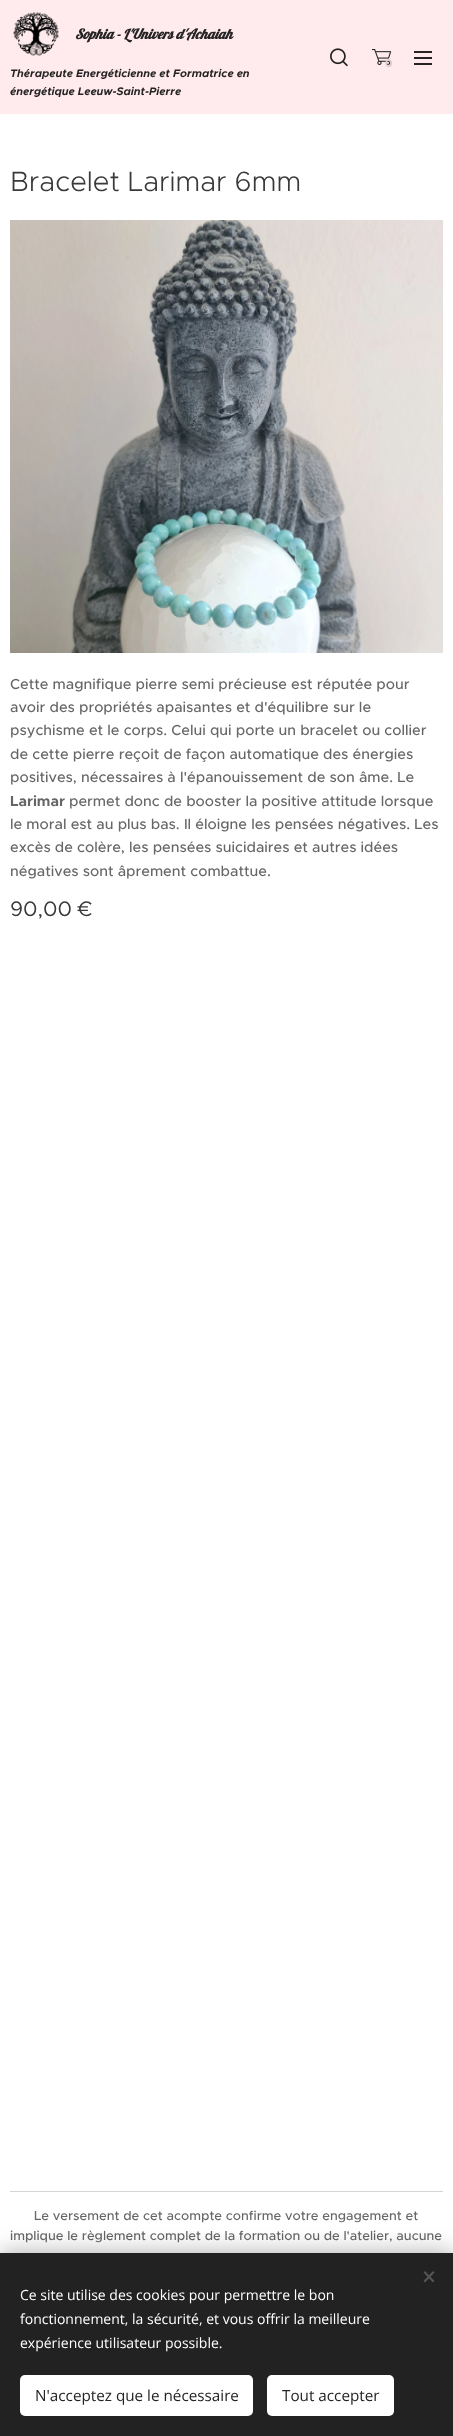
<svg xmlns="http://www.w3.org/2000/svg" width="453" height="2436">
<style>*{font-kerning:none!important;font-variant-ligatures:none!important}</style>
<rect width="100%" height="100%" fill="#fff"/>
<rect width="453" height="114" fill="#ffebee"/>
<image x="13" y="12" width="46" height="44" href="media/1.png"/>
<text x="75" y="39" style="font-family:Lobster;font-size:13.75px;font-weight:bold;font-style:italic;fill:#262324">Sophia - L'Univers d'Achaiah</text>
<text x="10" y="77" style="font-family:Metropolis;font-size:11px;font-weight:bold;font-style:italic;fill:#262324">Thérapeute Energéticienne et Formatrice en</text>
<text x="10" y="95" style="font-family:Metropolis;font-size:11px;font-weight:bold;font-style:italic;fill:#262324">énergétique Leeuw-Saint-Pierre</text>
<image x="330" y="48" width="18" height="19" href="media/2.png"/>
<image x="372" y="49" width="20" height="16" href="media/3.png"/>
<text x="385" y="67" style="font-family:Montserrat;font-size:11px;font-weight:bold;fill:#ddccce">0</text>
<rect x="414" y="57" width="18" height="2" fill="#262324"/>
<rect x="414" y="51" width="18" height="2" fill="#262324"/>
<rect x="414" y="63" width="18" height="2" fill="#262324"/>
<text x="10" y="191" style="font-family:Metropolis;font-size:28px;font-weight:300;fill:#393939">Bracelet Larimar 6mm</text>
<image x="10" y="220" width="433" height="433" href="media/4.png"/>
<text x="10" y="689" style="font-family:Metropolis;font-size:14.6px;font-weight:500;fill:#666">Cette magnifique pierre semi précieuse est réputée pour</text>
<text x="10" y="712" style="font-family:Metropolis;font-size:14.6px;font-weight:500;fill:#666">avoir des propriétés apaisantes et d'équilibre sur le</text>
<text x="10" y="735" style="font-family:Metropolis;font-size:14.6px;font-weight:500;fill:#666">psychisme et le corps. Celui qui porte un bracelet ou collier</text>
<text x="10" y="759" style="font-family:Metropolis;font-size:14.6px;font-weight:500;fill:#666">de cette pierre reçoit de façon automatique des énergies</text>
<text x="10" y="782" style="font-family:Metropolis;font-size:14.6px;font-weight:500;fill:#666">positives, nécessaires à l'épanouissement de son âme. Le</text>
<text x="10" y="806" style="font-family:Metropolis;font-size:14.6px;font-weight:bold;fill:#666">Larimar</text>
<text x="69" y="806" style="font-family:Metropolis;font-size:14.6px;font-weight:500;fill:#666">permet donc de booster la positive attitude lorsque</text>
<text x="10" y="829" style="font-family:Metropolis;font-size:14.6px;font-weight:500;fill:#666">le moral est au plus bas. Il éloigne les pensées négatives. Les</text>
<text x="10" y="852" style="font-family:Metropolis;font-size:14.6px;font-weight:500;fill:#666">excès de colère, les pensées suicidaires et autres idées</text>
<text x="10" y="876" style="font-family:Metropolis;font-size:14.6px;font-weight:500;fill:#666">négatives sont âprement combattue.</text>
<text x="10" y="916" style="font-family:Metropolis;font-size:21px;fill:#393939">90,00 €</text>
<rect x="10" y="2191" width="433" height="1" fill="#d4d4d4"/>
<text x="34" y="2220" style="font-family:Metropolis;font-size:13px;font-weight:500;fill:#666">Le versement de cet acompte confirme votre engagement et</text>
<text x="10" y="2240" style="font-family:Metropolis;font-size:13px;font-weight:500;fill:#666">implique le règlement complet de la formation ou de l'atelier, aucune</text>
<rect y="2253" width="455" height="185" fill="#00000054" filter="blur(12.5px)"/>
<rect y="2253" width="453" height="183" fill="#222"/>
<path d="M423.5 2281l9.5-10l1.5 1.5l-9.5 10z" fill="#555"/>
<path d="M425 2271l9.5 10l-1.5 1.5l-9.5-10z" fill="#555"/>
<text x="20" y="2300" style="font-family:Open Sans;font-size:14px;fill:#fff">Ce site utilise des cookies pour permettre le bon</text>
<text x="20" y="2324" style="font-family:Open Sans;font-size:14px;fill:#fff">fonctionnement, la sécurité, et vous offrir la meilleure</text>
<text x="20" y="2348" style="font-family:Open Sans;font-size:14px;fill:#fff">expérience utilisateur possible.</text>
<rect x="20" y="2375" width="233" height="41" rx="5" fill="#fff"/>
<text x="35" y="2401" style="font-family:Open Sans;font-size:15.25px;fill:#262324">N'acceptez que le nécessaire</text>
<rect x="267" y="2375" width="127" height="41" rx="5" fill="#fff"/>
<text x="282" y="2401" style="font-family:Open Sans;font-size:15.25px;fill:#262324">Tout accepter</text>
</svg>
